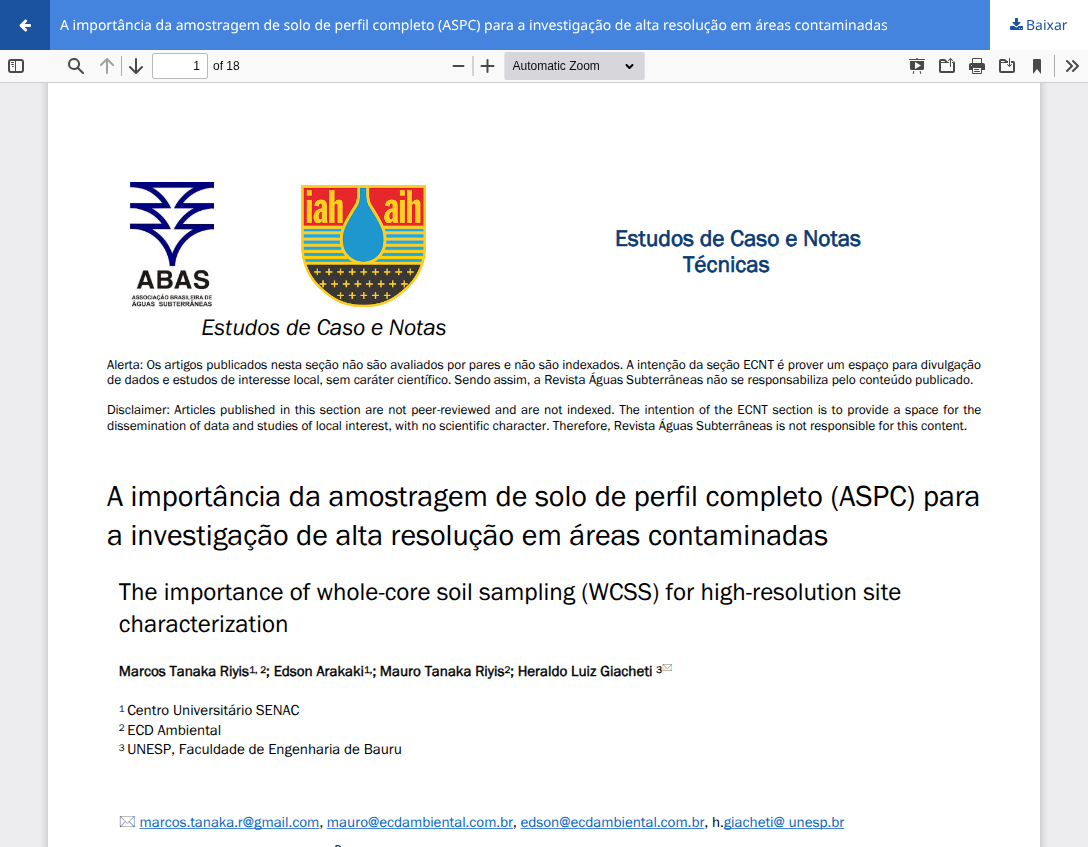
<svg xmlns="http://www.w3.org/2000/svg" width="1088" height="847">
<rect width="100%" height="100%" fill="#fff"/>
<rect x="50" width="940" height="50" fill="#4484de"/>
<rect width="50" height="50" fill="#1c53a0"/>
<image x="19" y="19" width="12" height="13" href="media/1.png"/>
<text x="60" y="30" style="font-family:Noto Sans;font-size:14px;fill:#fff">A importância da amostragem de solo de perfil completo (ASPC) para a investigação de alta resolução em áreas contaminadas</text>
<image x="1010" y="18" width="13" height="12" href="media/2.png"/>
<text x="1026" y="30" style="font-family:Noto Sans;font-size:14px;fill:#1c53a0">Baixar</text>
<image x="0" y="50" width="1088" height="797" href="media/3.png"/>
</svg>
